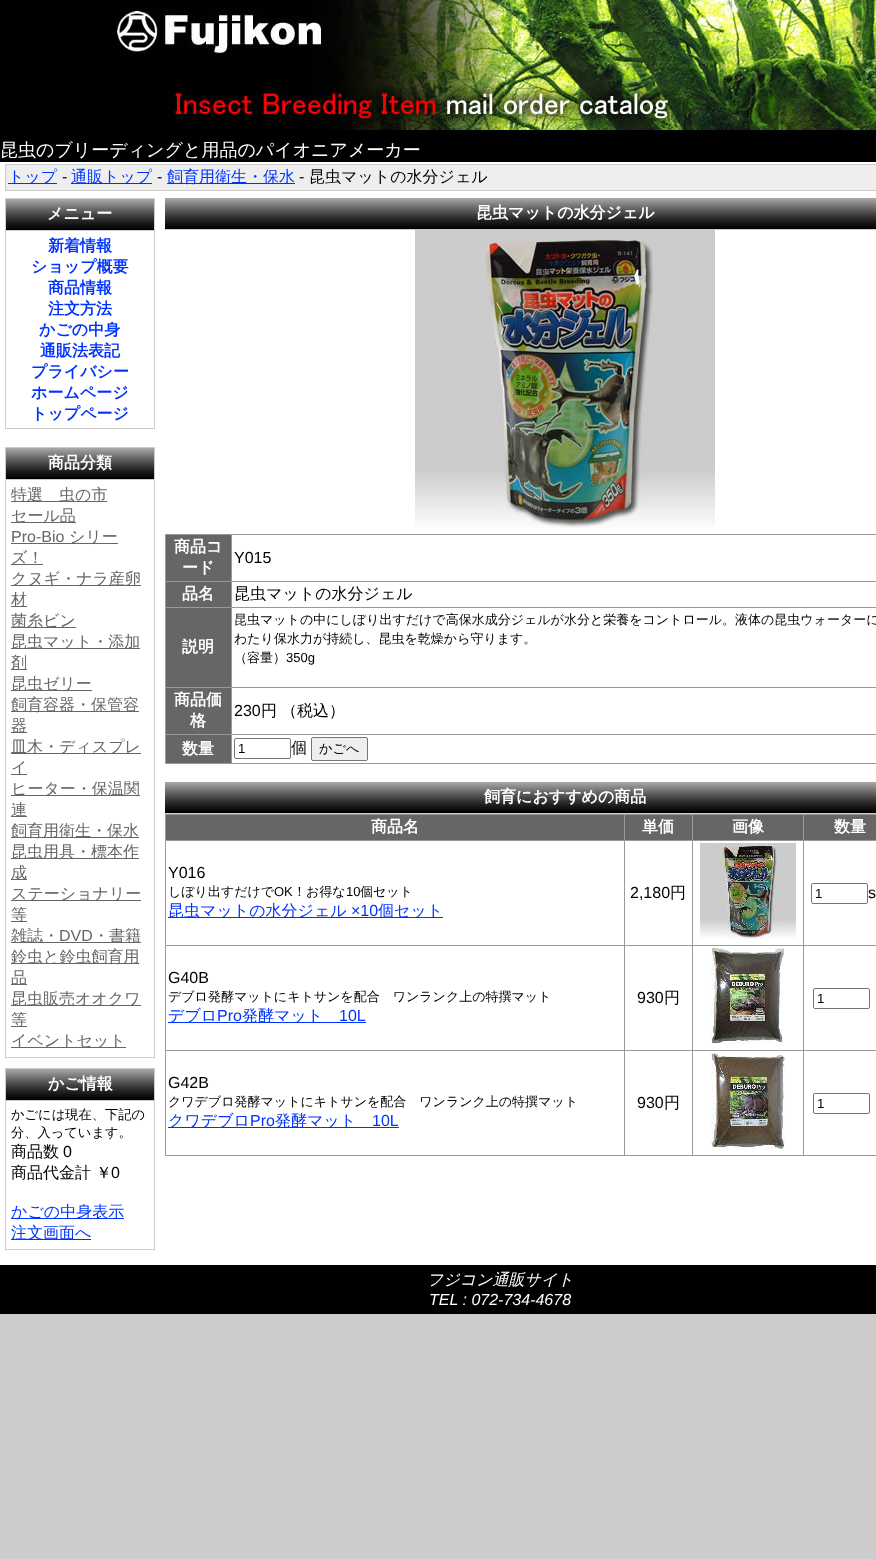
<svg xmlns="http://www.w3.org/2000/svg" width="876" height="1559">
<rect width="100%" height="100%" fill="#ccc"/>
<rect y="162" width="876" height="1103" fill="#fff"/>
<rect width="876" height="162" fill="#000"/>
<image x="116" y="0" width="760" height="130" href="media/1.png"/>
<text x="0" y="156" style="font-family:WenQuanYi Zen Hei;font-size:18px;font-weight:500;fill:#fff">昆虫のブリーディングと用品のパイオニアメーカー</text>
<rect x="5.5" y="164.5" width="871" height="26" fill="#eee" stroke="#ccc"/>
<rect x="8" y="183" width="49" height="1" fill="#03f"/>
<text x="8" y="182" style="font-family:WenQuanYi Zen Hei;font-size:16px;font-weight:500;fill:#03f">トップ</text>
<text x="62" y="182" style="font-family:Liberation Sans;font-size:16px;fill:#000">-</text>
<rect x="71" y="183" width="81" height="1" fill="#03f"/>
<text x="71" y="182" style="font-family:WenQuanYi Zen Hei;font-size:16px;font-weight:500;fill:#03f">通販トップ</text>
<text x="157" y="182" style="font-family:Liberation Sans;font-size:16px;fill:#000">-</text>
<rect x="167" y="183" width="128" height="1" fill="#03f"/>
<text x="167" y="182" style="font-family:WenQuanYi Zen Hei;font-size:16px;font-weight:500;fill:#03f">飼育用衛生・保水</text>
<text x="299" y="182" style="font-family:Liberation Sans;font-size:16px;fill:#000">-</text>
<text x="309" y="182" style="font-family:WenQuanYi Zen Hei;font-size:16px;font-weight:500;fill:#000">昆虫マットの水分ジェル</text>
<rect x="5.5" y="198.5" width="149" height="230" fill="none" stroke="#ccc"/>
<image x="6" y="199" width="148" height="31" href="media/2.png"/>
<rect x="6" y="230" width="148" height="1" fill="#ccc"/>
<text x="47" y="219" style="font-family:WenQuanYi Zen Hei;font-size:16px;font-weight:bold;fill:#fff">メニュー</text>
<text x="48" y="251" style="font-family:WenQuanYi Zen Hei;font-size:16px;font-weight:bold;fill:#03f">新着情報</text>
<text x="31" y="272" style="font-family:WenQuanYi Zen Hei;font-size:16px;font-weight:bold;fill:#03f">ショップ概要</text>
<text x="48" y="293" style="font-family:WenQuanYi Zen Hei;font-size:16px;font-weight:bold;fill:#03f">商品情報</text>
<text x="48" y="314" style="font-family:WenQuanYi Zen Hei;font-size:16px;font-weight:bold;fill:#03f">注文方法</text>
<text x="39" y="335" style="font-family:WenQuanYi Zen Hei;font-size:16px;font-weight:bold;fill:#03f">かごの中身</text>
<text x="40" y="356" style="font-family:WenQuanYi Zen Hei;font-size:16px;font-weight:bold;fill:#03f">通販法表記</text>
<text x="31" y="377" style="font-family:WenQuanYi Zen Hei;font-size:16px;font-weight:bold;fill:#03f">プライバシー</text>
<text x="31" y="398" style="font-family:WenQuanYi Zen Hei;font-size:16px;font-weight:bold;fill:#03f">ホームページ</text>
<text x="31" y="419" style="font-family:WenQuanYi Zen Hei;font-size:16px;font-weight:bold;fill:#03f">トップページ</text>
<rect x="5.5" y="447.5" width="149" height="610" fill="none" stroke="#ccc"/>
<image x="6" y="448" width="148" height="31" href="media/2.png"/>
<rect x="6" y="479" width="148" height="1" fill="#ccc"/>
<text x="48" y="468" style="font-family:WenQuanYi Zen Hei;font-size:16px;font-weight:bold;fill:#fff">商品分類</text>
<rect x="11" y="501" width="96" height="1" fill="#666"/>
<text x="11" y="500" style="font-family:WenQuanYi Zen Hei;font-size:16px;font-weight:500;fill:#666">特選　虫の市</text>
<rect x="11" y="522" width="65" height="1" fill="#666"/>
<text x="11" y="521" style="font-family:WenQuanYi Zen Hei;font-size:16px;font-weight:500;fill:#666">セール品</text>
<text x="11" y="542" style="font-family:Liberation Sans;font-size:16px;fill:#666">Pro-Bio</text>
<rect x="11" y="543" width="107" height="1" fill="#666"/>
<text x="69" y="542" style="font-family:WenQuanYi Zen Hei;font-size:16px;font-weight:500;fill:#666">シリー</text>
<rect x="11" y="564" width="32" height="1" fill="#666"/>
<text x="11" y="563" style="font-family:WenQuanYi Zen Hei;font-size:16px;font-weight:500;fill:#666">ズ！</text>
<rect x="11" y="585" width="130" height="1" fill="#666"/>
<text x="11" y="584" style="font-family:WenQuanYi Zen Hei;font-size:16px;font-weight:500;fill:#666">クヌギ・ナラ産卵</text>
<rect x="11" y="606" width="16" height="1" fill="#666"/>
<text x="11" y="605" style="font-family:WenQuanYi Zen Hei;font-size:16px;font-weight:500;fill:#666">材</text>
<rect x="11" y="627" width="65" height="1" fill="#666"/>
<text x="11" y="626" style="font-family:WenQuanYi Zen Hei;font-size:16px;font-weight:500;fill:#666">菌糸ビン</text>
<rect x="11" y="648" width="129" height="1" fill="#666"/>
<text x="11" y="647" style="font-family:WenQuanYi Zen Hei;font-size:16px;font-weight:500;fill:#666">昆虫マット・添加</text>
<rect x="11" y="669" width="16" height="1" fill="#666"/>
<text x="11" y="668" style="font-family:WenQuanYi Zen Hei;font-size:16px;font-weight:500;fill:#666">剤</text>
<rect x="11" y="690" width="81" height="1" fill="#666"/>
<text x="11" y="689" style="font-family:WenQuanYi Zen Hei;font-size:16px;font-weight:500;fill:#666">昆虫ゼリー</text>
<rect x="11" y="711" width="128" height="1" fill="#666"/>
<text x="11" y="710" style="font-family:WenQuanYi Zen Hei;font-size:16px;font-weight:500;fill:#666">飼育容器・保管容</text>
<rect x="11" y="732" width="16" height="1" fill="#666"/>
<text x="11" y="731" style="font-family:WenQuanYi Zen Hei;font-size:16px;font-weight:500;fill:#666">器</text>
<rect x="11" y="753" width="130" height="1" fill="#666"/>
<text x="11" y="752" style="font-family:WenQuanYi Zen Hei;font-size:16px;font-weight:500;fill:#666">皿木・ディスプレ</text>
<rect x="11" y="774" width="16" height="1" fill="#666"/>
<text x="11" y="773" style="font-family:WenQuanYi Zen Hei;font-size:16px;font-weight:500;fill:#666">イ</text>
<rect x="11" y="795" width="129" height="1" fill="#666"/>
<text x="11" y="794" style="font-family:WenQuanYi Zen Hei;font-size:16px;font-weight:500;fill:#666">ヒーター・保温関</text>
<rect x="11" y="816" width="16" height="1" fill="#666"/>
<text x="11" y="815" style="font-family:WenQuanYi Zen Hei;font-size:16px;font-weight:500;fill:#666">連</text>
<rect x="11" y="837" width="128" height="1" fill="#666"/>
<text x="11" y="836" style="font-family:WenQuanYi Zen Hei;font-size:16px;font-weight:500;fill:#666">飼育用衛生・保水</text>
<rect x="11" y="858" width="128" height="1" fill="#666"/>
<text x="11" y="857" style="font-family:WenQuanYi Zen Hei;font-size:16px;font-weight:500;fill:#666">昆虫用具・標本作</text>
<rect x="11" y="879" width="16" height="1" fill="#666"/>
<text x="11" y="878" style="font-family:WenQuanYi Zen Hei;font-size:16px;font-weight:500;fill:#666">成</text>
<rect x="11" y="900" width="130" height="1" fill="#666"/>
<text x="11" y="899" style="font-family:WenQuanYi Zen Hei;font-size:16px;font-weight:500;fill:#666">ステーショナリー</text>
<rect x="11" y="921" width="16" height="1" fill="#666"/>
<text x="11" y="920" style="font-family:WenQuanYi Zen Hei;font-size:16px;font-weight:500;fill:#666">等</text>
<rect x="11" y="942" width="130" height="1" fill="#666"/>
<text x="11" y="941" style="font-family:WenQuanYi Zen Hei;font-size:16px;font-weight:500;fill:#666">雑誌・</text>
<text x="59" y="941" style="font-family:Liberation Sans;font-size:16px;fill:#666">DVD</text>
<text x="93" y="941" style="font-family:WenQuanYi Zen Hei;font-size:16px;font-weight:500;fill:#666">・書籍</text>
<rect x="11" y="963" width="128" height="1" fill="#666"/>
<text x="11" y="962" style="font-family:WenQuanYi Zen Hei;font-size:16px;font-weight:500;fill:#666">鈴虫と鈴虫飼育用</text>
<rect x="11" y="984" width="16" height="1" fill="#666"/>
<text x="11" y="983" style="font-family:WenQuanYi Zen Hei;font-size:16px;font-weight:500;fill:#666">品</text>
<rect x="11" y="1005" width="130" height="1" fill="#666"/>
<text x="11" y="1004" style="font-family:WenQuanYi Zen Hei;font-size:16px;font-weight:500;fill:#666">昆虫販売オオクワ</text>
<rect x="11" y="1026" width="16" height="1" fill="#666"/>
<text x="11" y="1025" style="font-family:WenQuanYi Zen Hei;font-size:16px;font-weight:500;fill:#666">等</text>
<rect x="11" y="1047" width="115" height="1" fill="#666"/>
<text x="11" y="1046" style="font-family:WenQuanYi Zen Hei;font-size:16px;font-weight:500;fill:#666">イベントセット</text>
<rect x="5.5" y="1068.5" width="149" height="181" fill="none" stroke="#ccc"/>
<image x="6" y="1069" width="148" height="31" href="media/2.png"/>
<rect x="6" y="1100" width="148" height="1" fill="#ccc"/>
<text x="48" y="1089" style="font-family:WenQuanYi Zen Hei;font-size:16px;font-weight:bold;fill:#fff">かご情報</text>
<text x="11" y="1119" style="font-family:WenQuanYi Zen Hei;font-size:13.25px;font-weight:500;fill:#000">かごには現在、下記の</text>
<text x="11" y="1137" style="font-family:WenQuanYi Zen Hei;font-size:13.25px;font-weight:500;fill:#000">分、入っています。</text>
<text x="11" y="1157" style="font-family:WenQuanYi Zen Hei;font-size:16px;font-weight:500;fill:#000">商品数</text>
<text x="63" y="1157" style="font-family:Liberation Sans;font-size:16px;fill:#000">0</text>
<text x="11" y="1178" style="font-family:WenQuanYi Zen Hei;font-size:16px;font-weight:500;fill:#000">商品代金計 ￥</text>
<text x="111" y="1178" style="font-family:Liberation Sans;font-size:16px;fill:#000">0</text>
<rect x="11" y="1218" width="113" height="1" fill="#03f"/>
<text x="11" y="1217" style="font-family:WenQuanYi Zen Hei;font-size:16px;font-weight:500;fill:#03f">かごの中身表示</text>
<rect x="11" y="1239" width="80" height="1" fill="#03f"/>
<text x="11" y="1238" style="font-family:WenQuanYi Zen Hei;font-size:16px;font-weight:500;fill:#03f">注文画面へ</text>
<image x="165" y="198" width="711" height="31" href="media/3.png"/>
<rect x="165" y="229" width="711" height="1" fill="#ccc"/>
<text x="476" y="218" style="font-family:WenQuanYi Zen Hei;font-size:16px;font-weight:bold;fill:#fff">昆虫マットの水分ジェル</text>
<image x="415" y="230" width="300" height="298" href="media/4.png"/>
<rect x="165" y="534" width="711" height="1" fill="#999"/>
<rect x="165" y="763" width="711" height="1" fill="#999"/>
<rect x="165" y="534" width="1" height="230" fill="#999"/>
<rect x="166" y="535" width="65" height="46" fill="#666"/>
<text x="174" y="552" style="font-family:WenQuanYi Zen Hei;font-size:16px;font-weight:bold;fill:#fff">商品コ</text>
<text x="182" y="573" style="font-family:WenQuanYi Zen Hei;font-size:16px;font-weight:bold;fill:#fff">ード</text>
<rect x="231" y="581" width="645" height="1" fill="#999"/>
<rect x="231" y="607" width="645" height="1" fill="#999"/>
<rect x="231" y="687" width="645" height="1" fill="#999"/>
<rect x="231" y="734" width="645" height="1" fill="#999"/>
<rect x="231" y="734" width="1" height="30" fill="#999"/>
<rect x="165" y="734" width="67" height="1" fill="#999"/>
<rect x="231" y="687" width="1" height="48" fill="#999"/>
<rect x="165" y="687" width="67" height="1" fill="#999"/>
<rect x="231" y="607" width="1" height="81" fill="#999"/>
<rect x="165" y="607" width="67" height="1" fill="#999"/>
<rect x="231" y="581" width="1" height="27" fill="#999"/>
<rect x="165" y="581" width="67" height="1" fill="#999"/>
<rect x="231" y="534" width="1" height="48" fill="#999"/>
<text x="234" y="563" style="font-family:Liberation Sans;font-size:16px;fill:#000">Y015</text>
<rect x="166" y="582" width="65" height="25" fill="#666"/>
<text x="182" y="599" style="font-family:WenQuanYi Zen Hei;font-size:16px;font-weight:bold;fill:#fff">品名</text>
<text x="234" y="599" style="font-family:WenQuanYi Zen Hei;font-size:16px;font-weight:500;fill:#000">昆虫マットの水分ジェル</text>
<rect x="166" y="608" width="65" height="79" fill="#666"/>
<text x="182" y="652" style="font-family:WenQuanYi Zen Hei;font-size:16px;font-weight:bold;fill:#fff">説明</text>
<text x="234" y="624" style="font-family:WenQuanYi Zen Hei;font-size:13px;font-weight:500;fill:#000">昆虫マットの中にしぼり出すだけで高保水成分ジェルが水分と栄養をコントロール。液体の昆虫ウォーターに</text>
<text x="234" y="643" style="font-family:WenQuanYi Zen Hei;font-size:13px;font-weight:500;fill:#000">わたり保水力が持続し、昆虫を乾燥から守ります。</text>
<text x="234" y="662" style="font-family:WenQuanYi Zen Hei;font-size:13px;font-weight:500;fill:#000">（容量）</text>
<text x="286" y="662" style="font-family:Liberation Sans;font-size:13px;fill:#000">350g</text>
<rect x="166" y="688" width="65" height="46" fill="#666"/>
<text x="174" y="705" style="font-family:WenQuanYi Zen Hei;font-size:16px;font-weight:bold;fill:#fff">商品価</text>
<text x="190" y="726" style="font-family:WenQuanYi Zen Hei;font-size:16px;font-weight:bold;fill:#fff">格</text>
<text x="234" y="716" style="font-family:Liberation Sans;font-size:16px;fill:#000">230</text>
<text x="261" y="716" style="font-family:WenQuanYi Zen Hei;font-size:16px;font-weight:500;fill:#000">円</text>
<text x="281" y="716" style="font-family:WenQuanYi Zen Hei;font-size:16px;font-weight:500;fill:#000">（税込）</text>
<rect x="166" y="735" width="65" height="28" fill="#666"/>
<text x="182" y="754" style="font-family:WenQuanYi Zen Hei;font-size:16px;font-weight:bold;fill:#fff">数量</text>
<rect x="234.5" y="738.5" width="56" height="20" rx="1.5" fill="none" stroke="#767676"/>
<text x="238" y="753" style="font-family:Liberation Sans;font-size:13.25px;fill:#000">1</text>
<text x="291" y="753" style="font-family:WenQuanYi Zen Hei;font-size:16px;font-weight:500;fill:#000">個</text>
<rect x="311.5" y="737.5" width="56" height="23" rx="1.5" fill="#efefef" stroke="#767676"/>
<text x="319" y="753" style="font-family:WenQuanYi Zen Hei;font-size:13.25px;font-weight:500;fill:#000">かごへ</text>
<image x="165" y="782" width="711" height="31" href="media/3.png"/>
<rect x="165" y="813" width="711" height="1" fill="#ccc"/>
<text x="484" y="802" style="font-family:WenQuanYi Zen Hei;font-size:16px;font-weight:bold;fill:#fff">飼育におすすめの商品</text>
<rect x="165" y="814" width="711" height="1" fill="#999"/>
<rect x="165" y="1155" width="711" height="1" fill="#999"/>
<rect x="165" y="814" width="1" height="342" fill="#999"/>
<rect x="166" y="815" width="458" height="25" fill="#666"/>
<text x="371" y="832" style="font-family:WenQuanYi Zen Hei;font-size:16px;font-weight:bold;fill:#fff">商品名</text>
<rect x="625" y="815" width="67" height="25" fill="#666"/>
<rect x="803" y="840" width="73" height="1" fill="#999"/>
<rect x="803" y="945" width="73" height="1" fill="#999"/>
<rect x="803" y="1050" width="73" height="1" fill="#999"/>
<rect x="803" y="1050" width="1" height="106" fill="#999"/>
<rect x="692" y="1050" width="112" height="1" fill="#999"/>
<rect x="803" y="945" width="1" height="106" fill="#999"/>
<rect x="692" y="945" width="112" height="1" fill="#999"/>
<rect x="803" y="840" width="1" height="106" fill="#999"/>
<rect x="692" y="840" width="112" height="1" fill="#999"/>
<rect x="692" y="1050" width="1" height="106" fill="#999"/>
<rect x="624" y="1050" width="69" height="1" fill="#999"/>
<rect x="692" y="945" width="1" height="106" fill="#999"/>
<rect x="624" y="945" width="69" height="1" fill="#999"/>
<rect x="692" y="840" width="1" height="106" fill="#999"/>
<rect x="624" y="840" width="69" height="1" fill="#999"/>
<rect x="624" y="1050" width="1" height="106" fill="#999"/>
<rect x="165" y="1050" width="460" height="1" fill="#999"/>
<rect x="624" y="945" width="1" height="106" fill="#999"/>
<rect x="165" y="945" width="460" height="1" fill="#999"/>
<rect x="624" y="840" width="1" height="106" fill="#999"/>
<rect x="165" y="840" width="460" height="1" fill="#999"/>
<rect x="624" y="814" width="1" height="27" fill="#999"/>
<text x="642" y="832" style="font-family:WenQuanYi Zen Hei;font-size:16px;font-weight:bold;fill:#fff">単価</text>
<rect x="693" y="815" width="110" height="25" fill="#666"/>
<rect x="692" y="814" width="1" height="27" fill="#999"/>
<text x="732" y="832" style="font-family:WenQuanYi Zen Hei;font-size:16px;font-weight:bold;fill:#fff">画像</text>
<rect x="804" y="815" width="72" height="25" fill="#666"/>
<rect x="803" y="814" width="1" height="27" fill="#999"/>
<text x="834" y="832" style="font-family:WenQuanYi Zen Hei;font-size:16px;font-weight:bold;fill:#fff">数量</text>
<text x="168" y="878" style="font-family:Liberation Sans;font-size:16px;fill:#000">Y016</text>
<text x="168" y="896" style="font-family:WenQuanYi Zen Hei;font-size:13px;font-weight:500;fill:#000">しぼり出すだけで</text>
<text x="274" y="896" style="font-family:Liberation Sans;font-size:13px;fill:#000">OK</text>
<text x="293" y="896" style="font-family:WenQuanYi Zen Hei;font-size:13px;font-weight:500;fill:#000">！お得な</text>
<text x="346" y="896" style="font-family:Liberation Sans;font-size:13px;fill:#000">10</text>
<text x="360" y="896" style="font-family:WenQuanYi Zen Hei;font-size:13px;font-weight:500;fill:#000">個セット</text>
<rect x="168" y="917" width="275" height="1" fill="#03f"/>
<text x="168" y="916" style="font-family:WenQuanYi Zen Hei;font-size:16px;font-weight:500;fill:#03f">昆虫マットの水分ジェル</text>
<text x="351" y="916" style="font-family:Liberation Sans;font-size:16px;fill:#03f">×10</text>
<text x="378" y="916" style="font-family:WenQuanYi Zen Hei;font-size:16px;font-weight:500;fill:#03f">個セット</text>
<text x="630" y="898" style="font-family:Liberation Sans;font-size:16px;fill:#000">2,180</text>
<text x="670" y="898" style="font-family:WenQuanYi Zen Hei;font-size:16px;font-weight:500;fill:#000">円</text>
<image x="700" y="843" width="96" height="96" href="media/5.png"/>
<rect x="811.5" y="883.5" width="56" height="20" rx="1.5" fill="none" stroke="#767676"/>
<text x="815" y="898" style="font-family:Liberation Sans;font-size:13.25px;fill:#000">1</text>
<text x="868" y="898" style="font-family:Liberation Sans;font-size:16px;fill:#000">s</text>
<text x="168" y="983" style="font-family:Liberation Sans;font-size:16px;fill:#000">G40B</text>
<text x="168" y="1001" style="font-family:WenQuanYi Zen Hei;font-size:13px;font-weight:500;fill:#000">デブロ発酵マットにキトサンを配合　ワンランク上の特撰マット</text>
<rect x="168" y="1022" width="198" height="1" fill="#03f"/>
<text x="168" y="1021" style="font-family:WenQuanYi Zen Hei;font-size:16px;font-weight:500;fill:#03f">デブロ</text>
<text x="217" y="1021" style="font-family:Liberation Sans;font-size:16px;fill:#03f">Pro</text>
<text x="242" y="1021" style="font-family:WenQuanYi Zen Hei;font-size:16px;font-weight:500;fill:#03f">発酵マット</text>
<text x="339" y="1021" style="font-family:Liberation Sans;font-size:16px;fill:#03f">10L</text>
<text x="637" y="1003" style="font-family:Liberation Sans;font-size:16px;fill:#000">930</text>
<text x="664" y="1003" style="font-family:WenQuanYi Zen Hei;font-size:16px;font-weight:500;fill:#000">円</text>
<image x="711" y="948" width="73" height="96" href="media/6.png"/>
<rect x="813.5" y="988.5" width="56" height="20" rx="1.5" fill="none" stroke="#767676"/>
<text x="817" y="1003" style="font-family:Liberation Sans;font-size:13.25px;fill:#000">1</text>
<text x="168" y="1088" style="font-family:Liberation Sans;font-size:16px;fill:#000">G42B</text>
<text x="168" y="1106" style="font-family:WenQuanYi Zen Hei;font-size:13px;font-weight:500;fill:#000">クワデブロ発酵マットにキトサンを配合　ワンランク上の特撰マット</text>
<rect x="168" y="1127" width="231" height="1" fill="#03f"/>
<text x="168" y="1126" style="font-family:WenQuanYi Zen Hei;font-size:16px;font-weight:500;fill:#03f">クワデブロ</text>
<text x="250" y="1126" style="font-family:Liberation Sans;font-size:16px;fill:#03f">Pro</text>
<text x="275" y="1126" style="font-family:WenQuanYi Zen Hei;font-size:16px;font-weight:500;fill:#03f">発酵マット</text>
<text x="372" y="1126" style="font-family:Liberation Sans;font-size:16px;fill:#03f">10L</text>
<text x="637" y="1108" style="font-family:Liberation Sans;font-size:16px;fill:#000">930</text>
<text x="664" y="1108" style="font-family:WenQuanYi Zen Hei;font-size:16px;font-weight:500;fill:#000">円</text>
<image x="711" y="1053" width="74" height="96" href="media/7.png"/>
<rect x="813.5" y="1093.5" width="56" height="20" rx="1.5" fill="none" stroke="#767676"/>
<text x="817" y="1108" style="font-family:Liberation Sans;font-size:13.25px;fill:#000">1</text>
<rect y="1265" width="876" height="49" fill="#000"/>
<text x="427" y="1285" style="font-family:WenQuanYi Zen Hei;font-size:16px;font-weight:500;font-style:italic;fill:#fff">フジコン通販サイト</text>
<text x="429" y="1305" style="font-family:Liberation Sans;font-size:16px;font-style:italic;fill:#fff">TEL : 072-734-4678</text>
</svg>
